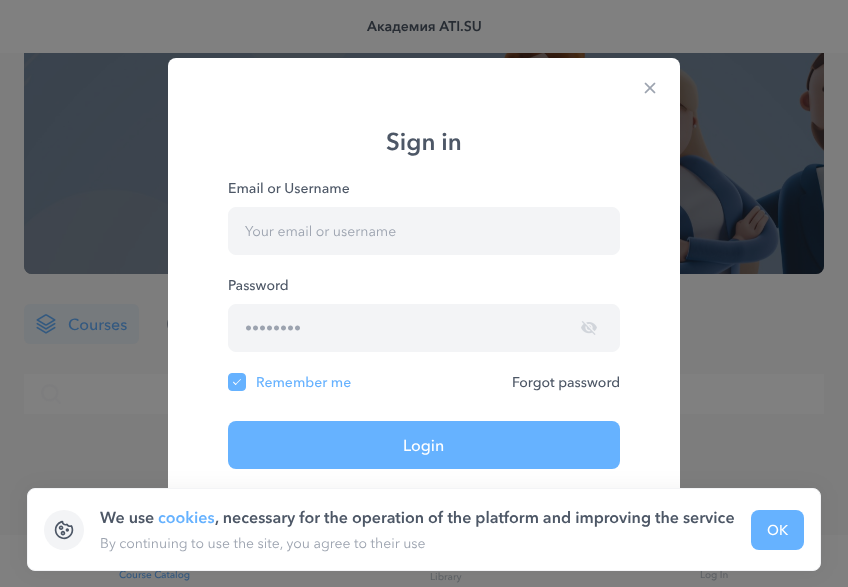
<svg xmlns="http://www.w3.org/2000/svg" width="848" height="587">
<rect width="100%" height="100%" fill="#7d7d7d"/>
<rect x="24" y="374" width="800" height="40" fill="#808080"/>
<rect x="24" y="26" width="800" height="248" rx="8" fill="#10151c"/>
<rect width="848" height="53" fill="#808080"/>
<text x="367" y="31" style="font-family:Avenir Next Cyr;font-size:14px;font-weight:bold;fill:#272c33">Академия ATI.SU</text>
<image x="24" y="53" width="800" height="221" href="media/1.png"/>
<rect x="24" y="304" width="115" height="40" rx="6" fill="#767a7d"/>
<image x="36" y="314" width="20" height="20" href="media/2.png"/>
<text x="68" y="330" style="font-family:Avenir Next Cyr;font-size:16px;font-weight:500;fill:#335980">Courses</text>
<image x="167" y="320" width="1" height="8" href="media/3.png"/>
<image x="41" y="384" width="20" height="20" href="media/4.png"/>
<rect y="535" width="848" height="52" fill="#808080"/>
<text x="119" y="578" style="font-family:Avenir Next Cyr;font-size:10px;font-weight:500;fill:#335980">Course Catalog</text>
<text x="430" y="580" style="font-family:Avenir Next Cyr;font-size:10px;font-weight:500;fill:#5f6367">Library</text>
<text x="700" y="578" style="font-family:Avenir Next Cyr;font-size:10px;font-weight:500;fill:#5f6367">Log In</text>
<rect x="168" y="58" width="512" height="471" rx="8" fill="#fff"/>
<image x="644" y="82" width="12" height="12" href="media/5.png"/>
<text x="386" y="150" style="font-family:Avenir Next Cyr;font-size:24px;font-weight:bold;fill:#4d5766">Sign in</text>
<text x="228" y="193" style="font-family:Avenir Next Cyr;font-size:14px;font-weight:500;fill:#4d5766">Email or Username</text>
<rect x="228.5" y="207.5" width="391" height="47" rx="7.5" fill="#f3f4f6" stroke="#f3f4f6"/>
<text x="245" y="236" style="font-family:Avenir Next Cyr;font-size:14px;fill:#9ca3af">Your email or username</text>
<text x="228" y="290" style="font-family:Avenir Next Cyr;font-size:14px;font-weight:500;fill:#4d5766">Password</text>
<rect x="228.5" y="304.5" width="391" height="47" rx="7.5" fill="#f3f4f6" stroke="#f3f4f6"/>
<text x="245" y="333" style="font-family:Avenir Next Cyr;font-size:14px;fill:#9ca3af">••••••••</text>
<image x="581" y="321" width="16" height="14" href="media/6.png"/>
<rect x="228.5" y="373.5" width="17" height="17" rx="3.5" fill="#66b2ff" stroke="#66b2ff"/>
<path d="M240.5 379l.5 .5l-5.5 5.5l-.5-.5z" fill="#fff"/>
<path d="M233.5 381.5l3 3l-1 .5l-2.5-2.5z" fill="#fff"/>
<text x="256" y="387" style="font-family:Avenir Next Cyr;font-size:14px;font-weight:500;fill:#66b2ff">Remember me</text>
<text x="512" y="387" style="font-family:Avenir Next Cyr;font-size:14px;font-weight:500;fill:#4d5766">Forgot password</text>
<rect x="228" y="421" width="392" height="48" rx="8" fill="#66b2ff"/>
<text x="403" y="451" style="font-family:Avenir Next Cyr;font-size:16px;font-weight:500;fill:#fff">Login</text>
<rect x="27" y="488" width="794" height="83" rx="8" fill="#0000000d" filter="blur(10px)"/>
<rect x="27.5" y="488.5" width="793" height="82" rx="7.5" fill="#fff" stroke="#f3f4f6"/>
<circle cx="64" cy="530" r="20" fill="#f3f4f6"/>
<image x="54" y="520" width="20" height="20" href="media/7.png"/>
<text x="100" y="523" style="font-family:Avenir Next Cyr;font-size:16px;font-weight:bold;fill:#4d5766">We use</text>
<text x="158" y="523" style="font-family:Avenir Next Cyr;font-size:16px;font-weight:bold;fill:#66b2ff">cookies</text>
<text x="215" y="523" style="font-family:Avenir Next Cyr;font-size:16px;font-weight:bold;fill:#4d5766">, necessary for the operation of the platform and improving the service</text>
<text x="100" y="548" style="font-family:Avenir Next Cyr;font-size:14px;fill:#9ca3af">By continuing to use the site, you agree to their use</text>
<rect x="751" y="510" width="53" height="40" rx="8" fill="#66b2ff"/>
<text x="767" y="535" style="font-family:Avenir Next Cyr;font-size:14px;font-weight:500;fill:#fff">OK</text>
</svg>
